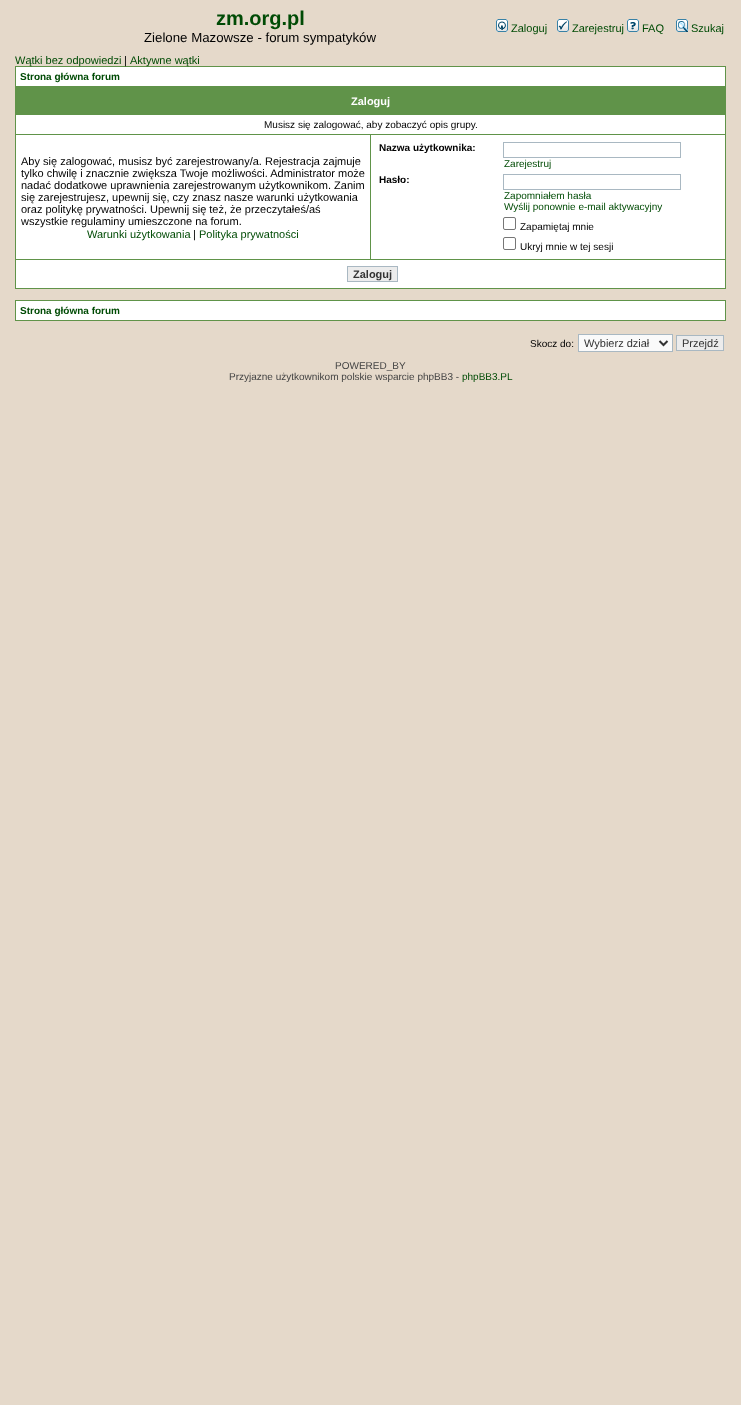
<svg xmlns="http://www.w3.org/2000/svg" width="741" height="1405">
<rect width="100%" height="100%" fill="#e5d9ca"/>
<text x="216" y="25" style="font-family:Liberation Sans;font-size:20px;font-weight:bold;fill:#004b05">zm.org.pl</text>
<text x="144" y="42" style="font-family:Liberation Sans;font-size:13.25px;fill:#000">Zielone Mazowsze - forum sympatyków</text>
<image x="496" y="19" width="12" height="13" href="media/1.png"/>
<text x="511" y="32" style="font-family:Liberation Sans;font-size:11px;fill:#004b05">Zaloguj</text>
<image x="557" y="19" width="12" height="13" href="media/2.png"/>
<text x="572" y="32" style="font-family:Liberation Sans;font-size:11px;fill:#004b05">Zarejestruj</text>
<image x="627" y="19" width="12" height="13" href="media/3.png"/>
<text x="642" y="32" style="font-family:Liberation Sans;font-size:11px;fill:#004b05">FAQ</text>
<image x="676" y="19" width="12" height="13" href="media/4.png"/>
<text x="691" y="32" style="font-family:Liberation Sans;font-size:11px;fill:#004b05">Szukaj</text>
<rect x="15" y="66" width="711" height="223" fill="#609349"/>
<text x="15" y="64" style="font-family:Liberation Sans;font-size:11px;fill:#004b05">Wątki bez odpowiedzi</text>
<text x="124" y="64" style="font-family:Liberation Sans;font-size:11px;fill:#000">|</text>
<text x="130" y="64" style="font-family:Liberation Sans;font-size:11px;fill:#004b05">Aktywne wątki</text>
<rect x="16" y="67" width="709" height="19" fill="#fff"/>
<text x="20" y="80" style="font-family:Liberation Sans;font-size:10px;font-weight:bold;fill:#004b05">Strona główna forum</text>
<text x="351" y="105" style="font-family:Liberation Sans;font-size:11px;font-weight:bold;fill:#fff">Zaloguj</text>
<rect x="16" y="115" width="709" height="19" fill="#fff"/>
<text x="264" y="128" style="font-family:Liberation Sans;font-size:10px;fill:#000">Musisz się zalogować, aby zobaczyć opis grupy.</text>
<rect x="16" y="135" width="354" height="124" fill="#fff"/>
<text x="21" y="165" style="font-family:Liberation Sans;font-size:11px;fill:#000">Aby się zalogować, musisz być zarejestrowany/a. Rejestracja zajmuje</text>
<text x="21" y="177" style="font-family:Liberation Sans;font-size:11px;fill:#000">tylko chwilę i znacznie zwiększa Twoje możliwości. Administrator może</text>
<text x="21" y="189" style="font-family:Liberation Sans;font-size:11px;fill:#000">nadać dodatkowe uprawnienia zarejestrowanym użytkownikom. Zanim</text>
<text x="21" y="201" style="font-family:Liberation Sans;font-size:11px;fill:#000">się zarejestrujesz, upewnij się, czy znasz nasze warunki użytkowania</text>
<text x="21" y="213" style="font-family:Liberation Sans;font-size:11px;fill:#000">oraz politykę prywatności. Upewnij się też, że przeczytałeś/aś</text>
<text x="21" y="225" style="font-family:Liberation Sans;font-size:11px;fill:#000">wszystkie regulaminy umieszczone na forum.</text>
<text x="87" y="238" style="font-family:Liberation Sans;font-size:11px;fill:#004b05">Warunki użytkowania</text>
<text x="193" y="238" style="font-family:Liberation Sans;font-size:11px;fill:#000">|</text>
<text x="199" y="238" style="font-family:Liberation Sans;font-size:11px;fill:#004b05">Polityka prywatności</text>
<rect x="371" y="135" width="354" height="124" fill="#fff"/>
<text x="379" y="151" style="font-family:Liberation Sans;font-size:10px;font-weight:bold;fill:#000">Nazwa użytkownika:</text>
<rect x="503.5" y="142.5" width="177" height="15" fill="none" stroke="#a9b8c2"/>
<text x="504" y="167" style="font-family:Liberation Sans;font-size:10px;fill:#004b05">Zarejestruj</text>
<text x="379" y="183" style="font-family:Liberation Sans;font-size:10px;font-weight:bold;fill:#000">Hasło:</text>
<rect x="503.5" y="174.5" width="177" height="15" fill="none" stroke="#a9b8c2"/>
<text x="504" y="199" style="font-family:Liberation Sans;font-size:10px;fill:#004b05">Zapomniałem hasła</text>
<text x="504" y="210" style="font-family:Liberation Sans;font-size:10px;fill:#004b05">Wyślij ponownie e-mail aktywacyjny</text>
<rect x="503.5" y="217.5" width="12" height="12" rx="1.5" fill="none" stroke="#767676"/>
<text x="520" y="230" style="font-family:Liberation Sans;font-size:10px;fill:#000">Zapamiętaj mnie</text>
<rect x="503.5" y="237.5" width="12" height="12" rx="1.5" fill="none" stroke="#767676"/>
<text x="520" y="250" style="font-family:Liberation Sans;font-size:10px;fill:#000">Ukryj mnie w tej sesji</text>
<rect x="16" y="260" width="709" height="28" fill="#fff"/>
<rect x="347.5" y="266.5" width="50" height="15" fill="#ececec" stroke="#a9b8c2"/>
<text x="353" y="278" style="font-family:Liberation Sans;font-size:11px;font-weight:bold;fill:#333">Zaloguj</text>
<rect x="15" y="300" width="711" height="21" fill="#609349"/>
<rect x="16" y="301" width="709" height="19" fill="#fff"/>
<text x="20" y="314" style="font-family:Liberation Sans;font-size:10px;font-weight:bold;fill:#004b05">Strona główna forum</text>
<text x="530" y="347" style="font-family:Liberation Sans;font-size:10px;fill:#000">Skocz do:</text>
<rect x="578.5" y="334.5" width="94" height="17" fill="#fafafa" stroke="#a9b8c2"/>
<path d="M659.5 341l4 4l4-4" fill="none" stroke="#333" stroke-width="2"/>
<text x="584" y="347" style="font-family:Liberation Sans;font-size:11px;fill:#333">Wybierz dział</text>
<rect x="676.5" y="335.5" width="47" height="15" fill="#ececec" stroke="#a9b8c2"/>
<text x="682" y="347" style="font-family:Liberation Sans;font-size:11px;fill:#333">Przejdź</text>
<text x="335" y="369" style="font-family:Liberation Sans;font-size:10px;fill:#444">POWERED_BY</text>
<text x="229" y="380" style="font-family:Liberation Sans;font-size:10px;fill:#444">Przyjazne użytkownikom polskie wsparcie phpBB3 -</text>
<text x="462" y="380" style="font-family:Liberation Sans;font-size:10px;fill:#004b05">phpBB3.PL</text>
</svg>
